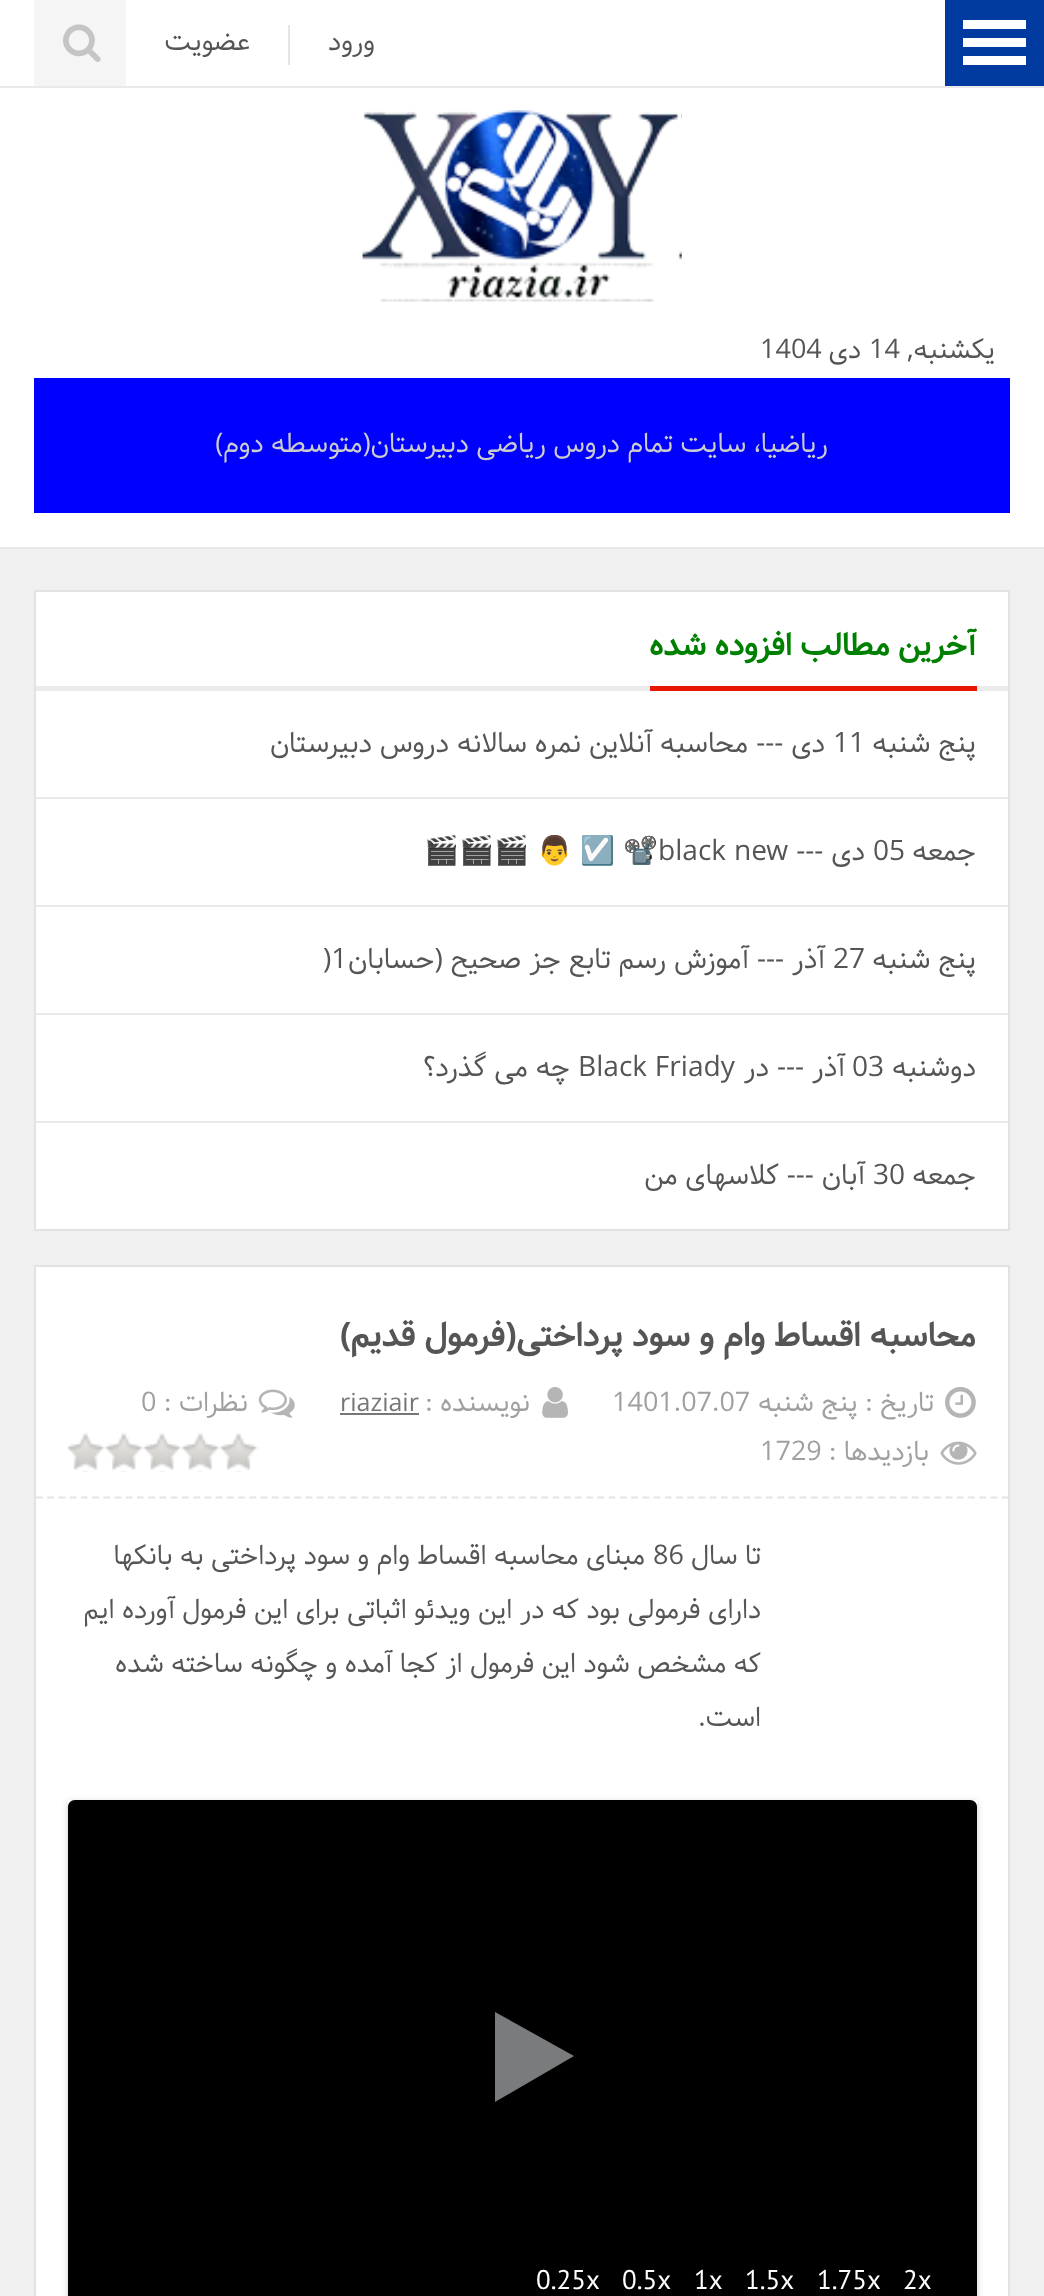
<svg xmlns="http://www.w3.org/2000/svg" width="1044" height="2296">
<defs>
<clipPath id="clip1"><path d="M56 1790h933v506h-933zm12 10h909v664h-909z" clip-rule="evenodd"/></clipPath>
</defs>
<rect width="100%" height="100%" fill="#fff"/>
<rect y="547" width="1044" height="2" fill="#e8e8e8"/>
<rect x="945" width="99" height="86" fill="#023b9f"/>
<rect x="963" y="20" width="63" height="9" fill="#fff"/>
<rect x="963" y="38" width="63" height="9" fill="#fff"/>
<rect x="963" y="56" width="63" height="9" fill="#fff"/>
<rect y="86" width="1044" height="2" fill="#eaeaea"/>
<rect x="288" y="25" width="2" height="40" fill="#e5e5e5"/>
<text x="375" y="50" style="font-family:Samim;font-size:27px;direction:rtl;fill:#555">ورود</text>
<text x="250" y="50" style="font-family:Samim;font-size:27px;direction:rtl;fill:#555">عضویت</text>
<rect x="34" width="92" height="86" fill="#f5f5f5"/>
<image x="63" y="24" width="38" height="38" href="media/1.png"/>
<image x="362" y="110" width="320" height="192" href="media/2.png"/>
<text x="995" y="358" style="font-family:Samim;font-size:27px;direction:rtl;fill:#555">یکشنبه,</text>
<text x="869" y="358" style="font-family:Samim;font-size:27px;fill:#555">14</text>
<text x="861" y="358" style="font-family:Samim;font-size:27px;direction:rtl;fill:#555">دی</text>
<text x="760" y="358" style="font-family:Samim;font-size:27px;fill:#555">1404</text>
<rect x="34" y="378" width="976" height="135" fill="#00f"/>
<text x="828" y="452" style="font-family:Samim;font-size:27px;direction:rtl;fill:#ccc">ریاضیا، سایت تمام دروس ریاضی دبیرستان(متوسطه دوم)</text>
<rect y="549" width="1044" height="1747" fill="#f0f0f0"/>
<rect x="35" y="591" width="974" height="639" fill="#fff" stroke="#e2e2e2" stroke-width="2"/>
<rect x="36" y="686" width="972" height="5" fill="#ebebeb"/>
<rect x="650" y="686" width="327" height="5" fill="#e91802"/>
<text x="976" y="655" style="font-family:Samim;font-size:31.5px;font-weight:bold;direction:rtl;fill:#008000">آخرین مطالب افزوده شده</text>
<rect x="36" y="797" width="972" height="2" fill="#eaeaea"/>
<text x="976" y="752" style="font-family:Samim;font-size:28.1px;direction:rtl;fill:#555">پنج شنبه</text>
<text x="833" y="752" style="font-family:Samim;font-size:28.1px;fill:#555">11</text>
<text x="825" y="752" style="font-family:Samim;font-size:28.1px;direction:rtl;fill:#555">دی ---</text>
<text x="748" y="752" style="font-family:Samim;font-size:28.1px;direction:rtl;fill:#555">محاسبه آنلاین نمره سالانه دروس دبیرستان</text>
<rect x="36" y="905" width="972" height="2" fill="#eaeaea"/>
<text x="976" y="860" style="font-family:Samim;font-size:28.1px;direction:rtl;fill:#555">جمعه</text>
<text x="873" y="860" style="font-family:Samim;font-size:28.1px;fill:#555">05</text>
<text x="865" y="860" style="font-family:Samim;font-size:28.1px;direction:rtl;fill:#555">دی ---</text>
<text x="658" y="860" style="font-family:Samim;font-size:28.1px;fill:#555">black new</text>
<text x="623" y="860" style="font-family:Noto Color Emoji;font-size:28.1px;fill:#555">📽</text>
<text x="580" y="860" style="font-family:Noto Color Emoji;font-size:28.1px;fill:#555">☑️</text>
<text x="537" y="860" style="font-family:Noto Color Emoji;font-size:28.1px;fill:#555">👨</text>
<text x="424" y="860" style="font-family:Noto Color Emoji;font-size:28.1px;fill:#555">🎬🎬🎬</text>
<rect x="36" y="1013" width="972" height="2" fill="#eaeaea"/>
<text x="976" y="968" style="font-family:Samim;font-size:28.1px;direction:rtl;fill:#555">پنج شنبه</text>
<text x="833" y="968" style="font-family:Samim;font-size:28.1px;fill:#555">27</text>
<text x="825" y="968" style="font-family:Samim;font-size:28.1px;direction:rtl;fill:#555">آذر ---</text>
<text x="749" y="968" style="font-family:Samim;font-size:28.1px;direction:rtl;fill:#555">آموزش رسم تابع جز صحیح (حسابان</text>
<text x="323" y="968" style="font-family:Samim;font-size:28.1px;fill:#555">)1</text>
<rect x="36" y="1121" width="972" height="2" fill="#eaeaea"/>
<text x="976" y="1076" style="font-family:Samim;font-size:28.1px;direction:rtl;fill:#555">دوشنبه</text>
<text x="852" y="1076" style="font-family:Samim;font-size:28.1px;fill:#555">03</text>
<text x="845" y="1076" style="font-family:Samim;font-size:28.1px;direction:rtl;fill:#555">آذر ---</text>
<text x="769" y="1076" style="font-family:Samim;font-size:28.1px;direction:rtl;fill:#555">در</text>
<text x="578" y="1076" style="font-family:Samim;font-size:28.1px;fill:#555">Black Friady</text>
<text x="570" y="1076" style="font-family:Samim;font-size:28.1px;direction:rtl;fill:#555">چه می گذرد؟</text>
<text x="976" y="1184" style="font-family:Samim;font-size:28.1px;direction:rtl;fill:#555">جمعه</text>
<text x="873" y="1184" style="font-family:Samim;font-size:28.1px;fill:#555">30</text>
<text x="865" y="1184" style="font-family:Samim;font-size:28.1px;direction:rtl;fill:#555">آبان ---</text>
<text x="779" y="1184" style="font-family:Samim;font-size:28.1px;direction:rtl;fill:#555">کلاسهای من</text>
<rect x="35" y="1266" width="974" height="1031" fill="#fff" stroke="#e2e2e2" stroke-width="2"/>
<path d="M36 1497.5h972" fill="none" stroke="#e2e4e6" stroke-width="2.2" stroke-dasharray="6.75 4.48"/>
<text x="976" y="1346" style="font-family:Samim;font-size:33.75px;font-weight:bold;direction:rtl;fill:#555">محاسبه اقساط وام و سود پرداختی(فرمول قدیم)</text>
<image x="945" y="1387" width="31" height="31" href="media/3.png"/>
<text x="934" y="1411" style="font-family:Samim;font-size:27px;direction:rtl;fill:#a0a0a0">تاریخ : پنج شنبه</text>
<text x="612" y="1411" style="font-family:Samim;font-size:27px;fill:#a0a0a0">1401.07.07</text>
<image x="542" y="1387" width="26" height="31" href="media/4.png"/>
<text x="530" y="1411" style="font-family:Samim;font-size:27px;direction:rtl;fill:#a0a0a0">نویسنده :</text>
<text x="340" y="1411" style="font-family:Samim;font-size:25px;fill:#777">riaziair</text>
<rect x="340" y="1413" width="79" height="2" fill="#777"/>
<image x="258" y="1389" width="37" height="29" href="media/5.png"/>
<text x="248" y="1411" style="font-family:Samim;font-size:27px;direction:rtl;fill:#a0a0a0">نظرات :</text>
<text x="141" y="1411" style="font-family:Samim;font-size:27px;fill:#a0a0a0">0</text>
<image x="940" y="1441" width="37" height="24" href="media/6.png"/>
<text x="929" y="1460" style="font-family:Samim;font-size:27px;direction:rtl;fill:#a0a0a0">بازدیدها :</text>
<text x="760" y="1460" style="font-family:Samim;font-size:27px;fill:#a0a0a0">1729</text>
<image x="67" y="1433" width="192" height="39" href="media/7.png"/>
<text x="761" y="1564" style="font-family:Samim;font-size:27px;direction:rtl;fill:#555">تا سال</text>
<text x="653" y="1564" style="font-family:Samim;font-size:27px;fill:#555">86</text>
<text x="645" y="1564" style="font-family:Samim;font-size:27px;direction:rtl;fill:#555">مبنای محاسبه اقساط وام و سود پرداختی به بانکها</text>
<text x="761" y="1618" style="font-family:Samim;font-size:27px;direction:rtl;fill:#555">دارای فرمولی بود که در این ویدئو اثباتی برای این فرمول آورده ایم</text>
<text x="761" y="1672" style="font-family:Samim;font-size:27px;direction:rtl;fill:#555">که مشخص شود این فرمول از کجا آمده و چگونه ساخته شده</text>
<text x="761" y="1726" style="font-family:Samim;font-size:27px;direction:rtl;fill:#555">است.</text>
<g clip-path="url(#clip1)">
<rect x="68" y="1802" width="909" height="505" fill="#00000033" filter="blur(3.5px)"/>
</g>
<path d="M75 1800h895c4 0 7 3 7 7v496h-909v-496c0-4 3-7 7-7z" fill="#000"/>
<path d="M495 2102v-90l79 44z" fill="#7a7b7c"/>
<text x="903" y="2289" style="font-family:PT Sans;font-size:27px;fill:#fff">2x</text>
<text x="817" y="2289" style="font-family:PT Sans;font-size:27px;fill:#fff">1.75x</text>
<text x="745" y="2289" style="font-family:PT Sans;font-size:27px;fill:#fff">1.5x</text>
<text x="694" y="2289" style="font-family:PT Sans;font-size:27px;fill:#fff">1x</text>
<text x="622" y="2289" style="font-family:PT Sans;font-size:27px;fill:#fff">0.5x</text>
<text x="536" y="2289" style="font-family:PT Sans;font-size:27px;fill:#fff">0.25x</text>
</svg>
